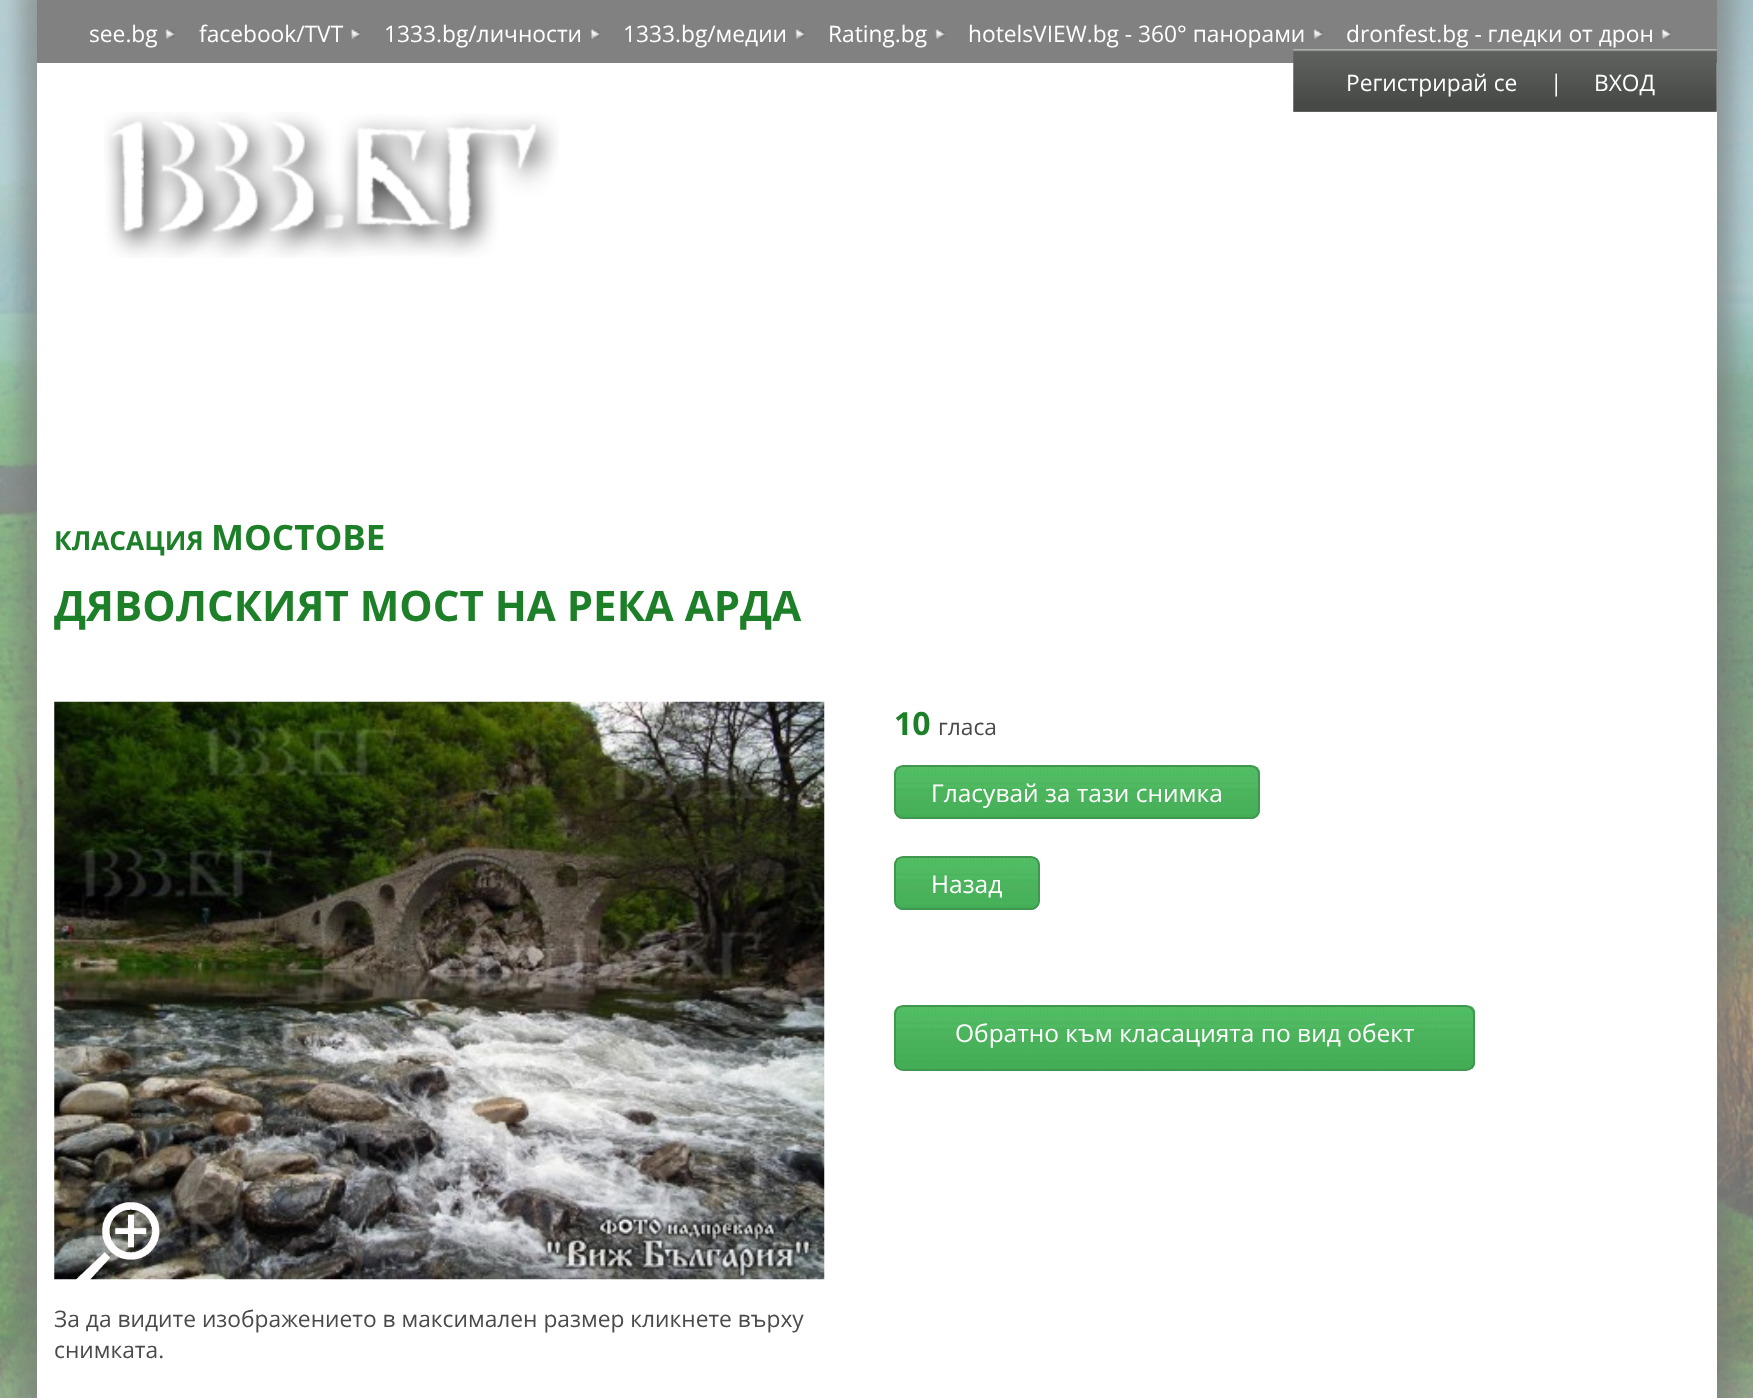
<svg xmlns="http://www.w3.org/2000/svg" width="1753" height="1398">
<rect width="100%" height="100%" fill="#fff"/>
<image x="0" y="0" width="1753" height="1398" href="media/1.png"/>
<rect x="21" y="-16" width="1712" height="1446" fill="#77777799" filter="blur(10.5px)"/>
<rect x="37" y="63" width="1680" height="1335" fill="#fff"/>
<rect x="37" width="1680" height="63" fill="#818181"/>
<text x="89" y="42" style="font-family:Open Sans;font-size:22.75px;fill:#fff">see.bg</text>
<image x="165" y="29" width="10" height="10" href="media/2.png"/>
<text x="199" y="42" style="font-family:Open Sans;font-size:22.75px;fill:#fff">facebook/TVT</text>
<image x="350" y="29" width="11" height="10" href="media/3.png"/>
<text x="384" y="42" style="font-family:Open Sans;font-size:22.75px;fill:#fff">1333.bg/личности</text>
<image x="590" y="29" width="10" height="10" href="media/4.png"/>
<text x="623" y="42" style="font-family:Open Sans;font-size:22.75px;fill:#fff">1333.bg/медии</text>
<image x="795" y="29" width="10" height="10" href="media/2.png"/>
<text x="828" y="42" style="font-family:Open Sans;font-size:22.75px;fill:#fff">Rating.bg</text>
<image x="935" y="29" width="10" height="10" href="media/2.png"/>
<text x="968" y="42" style="font-family:Open Sans;font-size:22.75px;fill:#fff">hotelsVIEW.bg - 360° панорами</text>
<image x="1313" y="29" width="10" height="10" href="media/2.png"/>
<text x="1346" y="42" style="font-family:Open Sans;font-size:22.75px;fill:#fff">dronfest.bg - гледки от дрон</text>
<image x="1661" y="29" width="10" height="10" href="media/4.png"/>
<image x="1293" y="49" width="424" height="63" href="media/5.png"/>
<text x="1346" y="91" style="font-family:Open Sans;font-size:22.75px;fill:#fff">Регистрирай се</text>
<text x="1550" y="91" style="font-family:Open Sans;font-size:22.75px;fill:#fff">|</text>
<text x="1594" y="91" style="font-family:Open Sans;font-size:22.75px;fill:#fff">ВХОД</text>
<image x="104" y="112" width="455" height="146" href="media/6.png"/>
<text x="54" y="550" style="font-family:Open Sans;font-size:26.25px;font-weight:bold;fill:#1d8029">КЛАСАЦИЯ</text>
<text x="211" y="550" style="font-family:Open Sans;font-size:35px;font-weight:bold;fill:#1d8029">МОСТОВЕ</text>
<text x="54" y="621" style="font-family:Open Sans;font-size:42px;font-weight:bold;fill:#1d8029">ДЯВОЛСКИЯТ МОСТ НА РЕКА АРДА</text>
<text x="894" y="735" style="font-family:Open Sans;font-size:32px;font-weight:bold;fill:#1d8029">10</text>
<text x="938" y="735" style="font-family:Open Sans;font-size:22.75px;fill:#4a4a4a">гласа</text>
<image x="894" y="766" width="366" height="53" href="media/7.png"/>
<rect x="895" y="766" width="364" height="52" rx="8" fill="none" stroke="#409850" stroke-width="2"/>
<text x="931" y="802" style="font-family:Open Sans;font-size:24.5px;fill:#fff">Гласувай за тази снимка</text>
<image x="894" y="857" width="146" height="53" href="media/8.png"/>
<rect x="895" y="857" width="144" height="52" rx="8" fill="none" stroke="#409850" stroke-width="2"/>
<text x="931" y="893" style="font-family:Open Sans;font-size:24.5px;fill:#fff">Назад</text>
<image x="894" y="1006" width="582" height="64" href="media/9.png"/>
<rect x="895" y="1006" width="579" height="64" rx="8" fill="none" stroke="#409850" stroke-width="2"/>
<text x="955" y="1042" style="font-family:Open Sans;font-size:24.5px;fill:#fff">Обратно към класацията по вид обект</text>
<image x="54" y="701" width="771" height="579" href="media/10.png"/>
<image x="76" y="1202" width="84" height="78" href="media/11.png"/>
<text x="54" y="1327" style="font-family:Open Sans;font-size:22.75px;fill:#4a4a4a">За да видите изображението в максимален размер кликнете върху</text>
<text x="54" y="1358" style="font-family:Open Sans;font-size:22.75px;fill:#4a4a4a">снимката.</text>
</svg>
